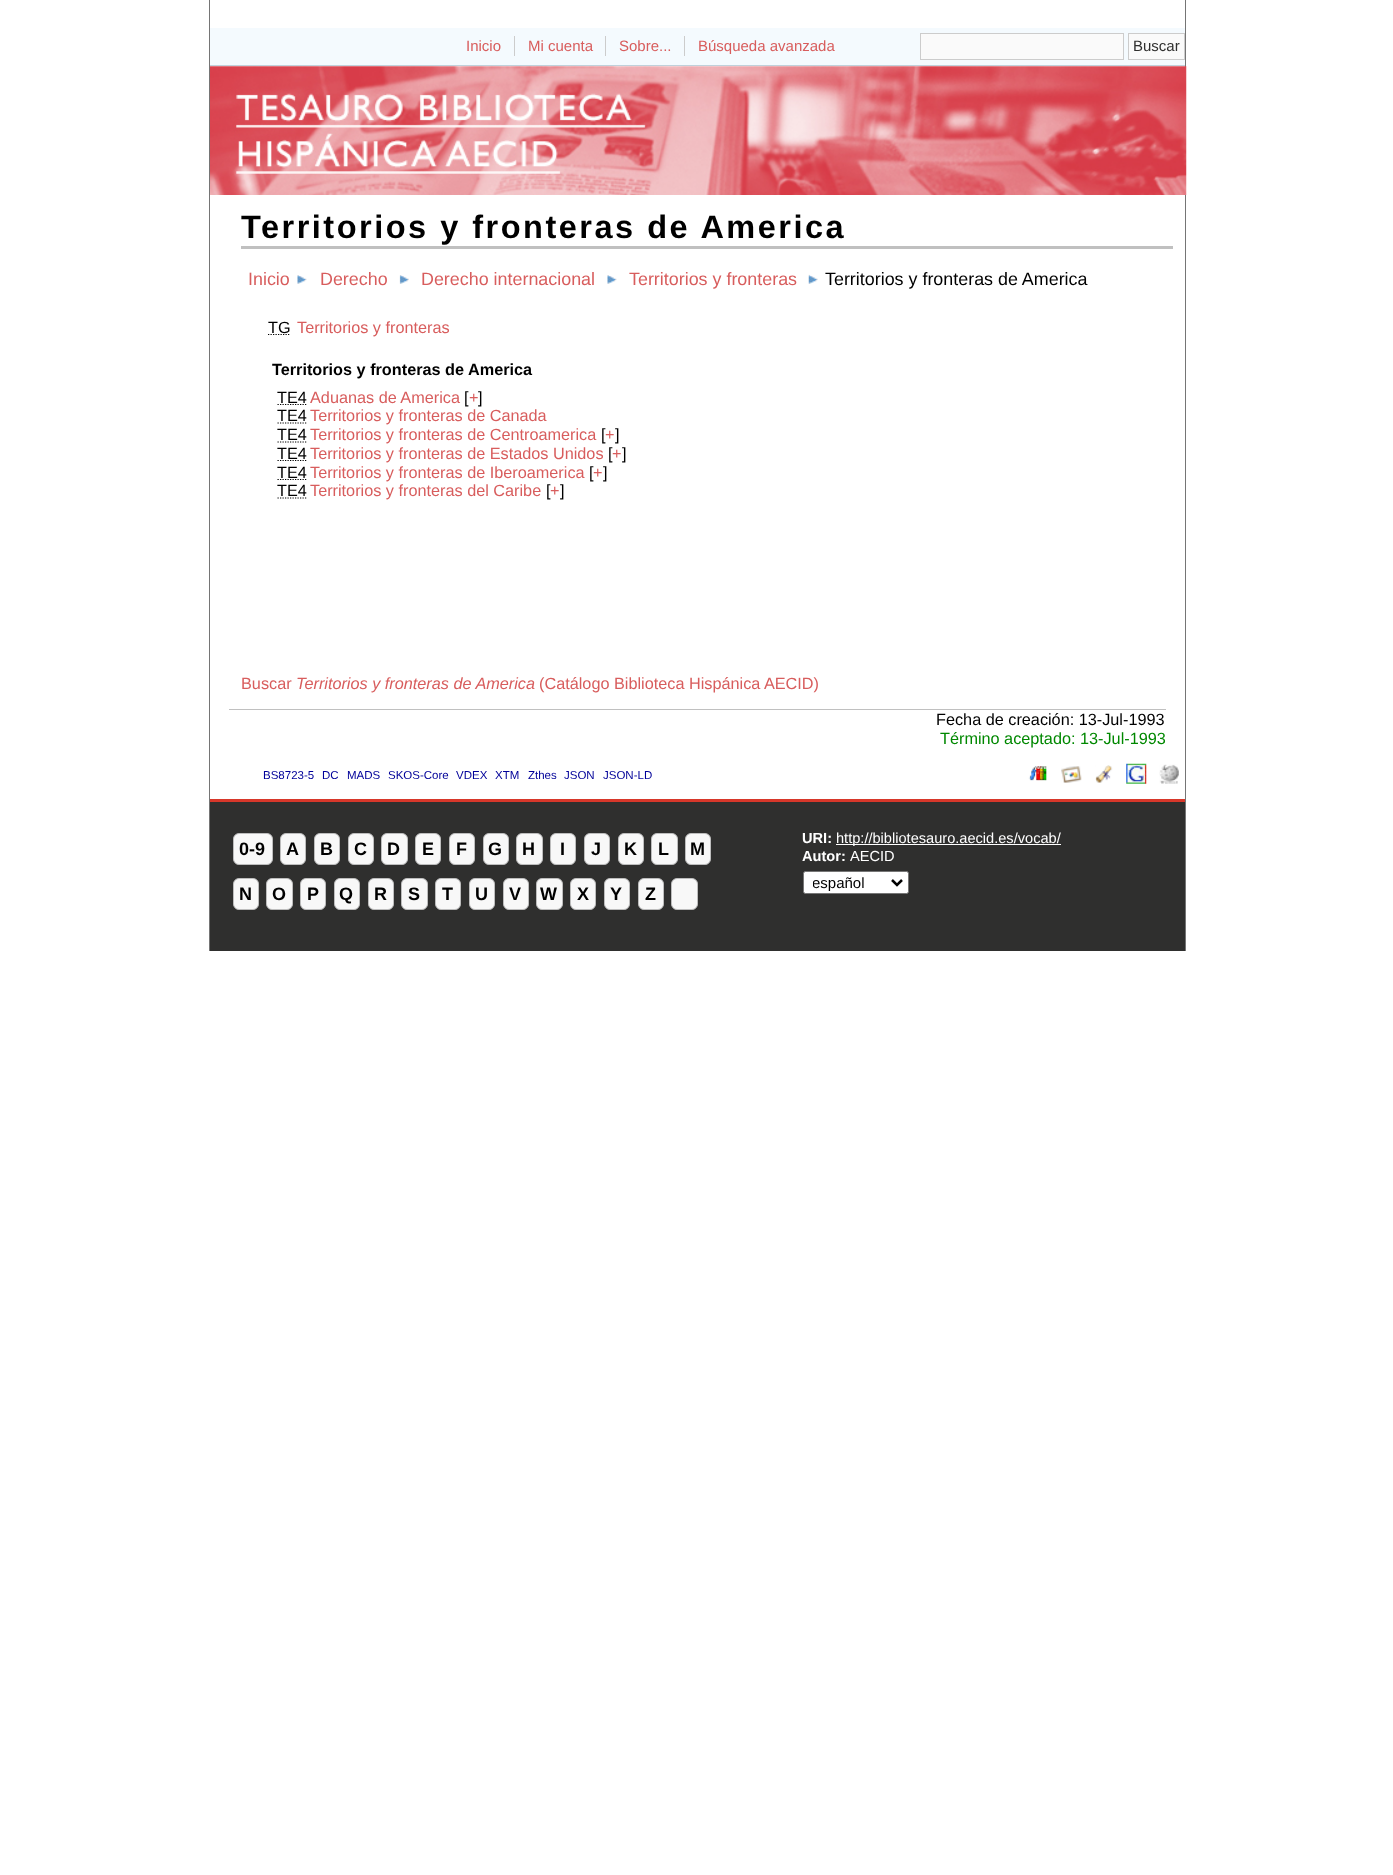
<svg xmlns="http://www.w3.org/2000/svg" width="1393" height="1875">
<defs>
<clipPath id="clip1"><rect x="813" y="873" width="75" height="20"/></clipPath>
</defs>
<rect width="100%" height="100%" fill="#fff"/>
<rect x="1185" width="1" height="951" fill="#757575"/>
<rect x="209" width="1" height="951" fill="#757575"/>
<rect x="210" y="28" width="975" height="37" fill="#f4fafe"/>
<rect x="210" y="65" width="975" height="1" fill="#c0d1db"/>
<text x="466" y="51" style="font-family:Liberation Sans;font-size:15px;fill:#d85d5d">Inicio</text>
<text x="528" y="51" style="font-family:Liberation Sans;font-size:15px;fill:#d85d5d">Mi cuenta</text>
<rect x="514" y="36" width="1" height="20" fill="#ccc"/>
<text x="619" y="51" style="font-family:Liberation Sans;font-size:15px;fill:#d85d5d">Sobre...</text>
<rect x="605" y="36" width="1" height="20" fill="#ccc"/>
<text x="698" y="51" style="font-family:Liberation Sans;font-size:15px;fill:#d85d5d">Búsqueda avanzada</text>
<rect x="684" y="36" width="1" height="20" fill="#ccc"/>
<rect x="920.5" y="33.5" width="203" height="26" fill="#fafafa" stroke="#ccc"/>
<rect x="1128.5" y="33.5" width="56" height="26" fill="#fafafa" stroke="#ccc"/>
<text x="1133" y="51" style="font-family:Liberation Sans;font-size:15px;fill:#2f2f2e">Buscar</text>
<image x="210" y="66" width="977" height="129" href="media/1.png"/>
<rect x="241" y="246" width="932" height="3" fill="#c0c0c0"/>
<text x="241" y="238" style="font-family:Liberation Sans;font-size:32.5px;font-weight:bold;letter-spacing:2.5px;fill:#000">Territorios y fronteras de America</text>
<text x="248" y="285" style="font-family:Liberation Sans;font-size:17.9px;fill:#d85d5d">Inicio</text>
<image x="297" y="275" width="10" height="9" href="media/2.png"/>
<text x="320" y="285" style="font-family:Liberation Sans;font-size:17.9px;fill:#d85d5d">Derecho</text>
<image x="399" y="275" width="10" height="9" href="media/3.png"/>
<text x="421" y="285" style="font-family:Liberation Sans;font-size:17.9px;fill:#d85d5d">Derecho internacional</text>
<image x="607" y="275" width="10" height="9" href="media/2.png"/>
<text x="629" y="285" style="font-family:Liberation Sans;font-size:17.9px;fill:#d85d5d">Territorios y fronteras</text>
<image x="808" y="274" width="10" height="10" href="media/4.png"/>
<text x="825" y="285" style="font-family:Liberation Sans;font-size:17.9px;fill:#000">Territorios y fronteras de America</text>
<path d="M268 334.5h22.5" fill="none" stroke="#000" stroke-width="1.2" stroke-dasharray="1.25 1.25"/>
<text x="268" y="333" style="font-family:Liberation Sans;font-size:16.25px;fill:#000">TG</text>
<text x="297" y="333" style="font-family:Liberation Sans;font-size:16.25px;fill:#d85d5d">Territorios y fronteras</text>
<text x="272" y="375" style="font-family:Liberation Sans;font-size:16.25px;font-weight:bold;fill:#000">Territorios y fronteras de America</text>
<text x="277" y="403" style="font-family:Liberation Sans;font-size:16.25px;fill:#000">TE4</text>
<path d="M277.5 404.5h30" fill="none" stroke="#000" stroke-width="1.2" stroke-dasharray="1.25 1.25"/>
<text x="310" y="403" style="font-family:Liberation Sans;font-size:16.25px;fill:#d85d5d">Aduanas de America</text>
<text x="464" y="403" style="font-family:Liberation Sans;font-size:16.25px;fill:#000">[</text>
<text x="469" y="403" style="font-family:Liberation Sans;font-size:16.25px;fill:#d85d5d">+</text>
<text x="478" y="403" style="font-family:Liberation Sans;font-size:16.25px;fill:#000">]</text>
<text x="277" y="421" style="font-family:Liberation Sans;font-size:16.25px;fill:#000">TE4</text>
<path d="M277.5 423h30" fill="none" stroke="#000" stroke-width="1.2" stroke-dasharray="1.25 1.25"/>
<text x="310" y="421" style="font-family:Liberation Sans;font-size:16.25px;fill:#d85d5d">Territorios y fronteras de Canada</text>
<text x="277" y="440" style="font-family:Liberation Sans;font-size:16.25px;fill:#000">TE4</text>
<path d="M277.5 442h30" fill="none" stroke="#000" stroke-width="1.2" stroke-dasharray="1.25 1.25"/>
<text x="310" y="440" style="font-family:Liberation Sans;font-size:16.25px;fill:#d85d5d">Territorios y fronteras de Centroamerica</text>
<text x="601" y="440" style="font-family:Liberation Sans;font-size:16.25px;fill:#000">[</text>
<text x="605" y="440" style="font-family:Liberation Sans;font-size:16.25px;fill:#d85d5d">+</text>
<text x="615" y="440" style="font-family:Liberation Sans;font-size:16.25px;fill:#000">]</text>
<text x="277" y="459" style="font-family:Liberation Sans;font-size:16.25px;fill:#000">TE4</text>
<path d="M277.5 460.5h30" fill="none" stroke="#000" stroke-width="1.2" stroke-dasharray="1.25 1.25"/>
<text x="310" y="459" style="font-family:Liberation Sans;font-size:16.25px;fill:#d85d5d">Territorios y fronteras de Estados Unidos</text>
<text x="608" y="459" style="font-family:Liberation Sans;font-size:16.25px;fill:#000">[</text>
<text x="612" y="459" style="font-family:Liberation Sans;font-size:16.25px;fill:#d85d5d">+</text>
<text x="622" y="459" style="font-family:Liberation Sans;font-size:16.25px;fill:#000">]</text>
<text x="277" y="478" style="font-family:Liberation Sans;font-size:16.25px;fill:#000">TE4</text>
<path d="M277.5 479.5h30" fill="none" stroke="#000" stroke-width="1.2" stroke-dasharray="1.25 1.25"/>
<text x="310" y="478" style="font-family:Liberation Sans;font-size:16.25px;fill:#d85d5d">Territorios y fronteras de Iberoamerica</text>
<text x="589" y="478" style="font-family:Liberation Sans;font-size:16.25px;fill:#000">[</text>
<text x="593" y="478" style="font-family:Liberation Sans;font-size:16.25px;fill:#d85d5d">+</text>
<text x="603" y="478" style="font-family:Liberation Sans;font-size:16.25px;fill:#000">]</text>
<text x="277" y="496" style="font-family:Liberation Sans;font-size:16.25px;fill:#000">TE4</text>
<path d="M277.5 498h30" fill="none" stroke="#000" stroke-width="1.2" stroke-dasharray="1.25 1.25"/>
<text x="310" y="496" style="font-family:Liberation Sans;font-size:16.25px;fill:#d85d5d">Territorios y fronteras del Caribe</text>
<text x="546" y="496" style="font-family:Liberation Sans;font-size:16.25px;fill:#000">[</text>
<text x="550" y="496" style="font-family:Liberation Sans;font-size:16.25px;fill:#d85d5d">+</text>
<text x="560" y="496" style="font-family:Liberation Sans;font-size:16.25px;fill:#000">]</text>
<text x="241" y="689" style="font-family:Liberation Sans;font-size:16.25px;fill:#d85d5d">Buscar</text>
<text x="296" y="689" style="font-family:Liberation Sans;font-size:16.25px;font-style:italic;fill:#d85d5d">Territorios y fronteras de America</text>
<text x="539" y="689" style="font-family:Liberation Sans;font-size:16.25px;fill:#d85d5d">(Catálogo Biblioteca Hispánica AECID)</text>
<rect x="229" y="709" width="937" height="1" fill="#c0c0c0"/>
<text x="936" y="725" style="font-family:Liberation Sans;font-size:16.25px;fill:#000">Fecha de creación: 13-Jul-1993</text>
<text x="940" y="744" style="font-family:Liberation Sans;font-size:16.25px;fill:#080">Término aceptado: 13-Jul-1993</text>
<text x="263" y="779" style="font-family:Liberation Sans;font-size:11.5px;fill:#009">BS8723-5</text>
<text x="322" y="779" style="font-family:Liberation Sans;font-size:11.5px;fill:#009">DC</text>
<text x="347" y="779" style="font-family:Liberation Sans;font-size:11.5px;fill:#009">MADS</text>
<text x="388" y="779" style="font-family:Liberation Sans;font-size:11.5px;fill:#009">SKOS-Core</text>
<text x="456" y="779" style="font-family:Liberation Sans;font-size:11.5px;fill:#009">VDEX</text>
<text x="495" y="779" style="font-family:Liberation Sans;font-size:11.5px;fill:#009">XTM</text>
<text x="528" y="779" style="font-family:Liberation Sans;font-size:11.5px;fill:#009">Zthes</text>
<text x="564" y="779" style="font-family:Liberation Sans;font-size:11.5px;fill:#009">JSON</text>
<text x="603" y="779" style="font-family:Liberation Sans;font-size:11.5px;fill:#009">JSON-LD</text>
<image x="1028" y="766" width="19" height="15" href="media/5.png"/>
<image x="1061" y="766" width="21" height="17" href="media/6.png"/>
<image x="1095" y="765" width="18" height="18" href="media/7.png"/>
<image x="1126" y="763" width="21" height="21" href="media/8.png"/>
<image x="1159" y="764" width="20" height="20" href="media/9.png"/>
<rect x="210" y="802" width="975" height="149" fill="#2f2f2e"/>
<rect x="210" y="799" width="975" height="3" fill="#d7372a"/>
<rect x="233.5" y="833.5" width="39" height="31" rx="5.5" fill="#f8f8f8" stroke="#bdbdbd"/>
<text x="239" y="855" style="font-family:Liberation Sans;font-size:18px;font-weight:bold;fill:#000">0-9</text>
<rect x="280.5" y="833.5" width="25" height="31" rx="5.5" fill="#f8f8f8" stroke="#bdbdbd"/>
<text x="286" y="855" style="font-family:Liberation Sans;font-size:18px;font-weight:bold;fill:#000">A</text>
<rect x="314.5" y="833.5" width="25" height="31" rx="5.5" fill="#f8f8f8" stroke="#bdbdbd"/>
<text x="320" y="855" style="font-family:Liberation Sans;font-size:18px;font-weight:bold;fill:#000">B</text>
<rect x="348.5" y="833.5" width="25" height="31" rx="5.5" fill="#f8f8f8" stroke="#bdbdbd"/>
<text x="354" y="855" style="font-family:Liberation Sans;font-size:18px;font-weight:bold;fill:#000">C</text>
<rect x="381.5" y="833.5" width="26" height="31" rx="5.5" fill="#f8f8f8" stroke="#bdbdbd"/>
<text x="387" y="855" style="font-family:Liberation Sans;font-size:18px;font-weight:bold;fill:#000">D</text>
<rect x="415.5" y="833.5" width="25" height="31" rx="5.5" fill="#f8f8f8" stroke="#bdbdbd"/>
<text x="422" y="855" style="font-family:Liberation Sans;font-size:18px;font-weight:bold;fill:#000">E</text>
<rect x="449.5" y="833.5" width="25" height="31" rx="5.5" fill="#f8f8f8" stroke="#bdbdbd"/>
<text x="456" y="855" style="font-family:Liberation Sans;font-size:18px;font-weight:bold;fill:#000">F</text>
<rect x="483.5" y="833.5" width="25" height="31" rx="5.5" fill="#f8f8f8" stroke="#bdbdbd"/>
<text x="488" y="855" style="font-family:Liberation Sans;font-size:18px;font-weight:bold;fill:#000">G</text>
<rect x="516.5" y="833.5" width="26" height="31" rx="5.5" fill="#f8f8f8" stroke="#bdbdbd"/>
<text x="522" y="855" style="font-family:Liberation Sans;font-size:18px;font-weight:bold;fill:#000">H</text>
<rect x="550.5" y="833.5" width="25" height="31" rx="5.5" fill="#f8f8f8" stroke="#bdbdbd"/>
<text x="560" y="855" style="font-family:Liberation Sans;font-size:18px;font-weight:bold;fill:#000">I</text>
<rect x="584.5" y="833.5" width="25" height="31" rx="5.5" fill="#f8f8f8" stroke="#bdbdbd"/>
<text x="591" y="855" style="font-family:Liberation Sans;font-size:18px;font-weight:bold;fill:#000">J</text>
<rect x="618.5" y="833.5" width="25" height="31" rx="5.5" fill="#f8f8f8" stroke="#bdbdbd"/>
<text x="624" y="855" style="font-family:Liberation Sans;font-size:18px;font-weight:bold;fill:#000">K</text>
<rect x="651.5" y="833.5" width="26" height="31" rx="5.5" fill="#f8f8f8" stroke="#bdbdbd"/>
<text x="658" y="855" style="font-family:Liberation Sans;font-size:18px;font-weight:bold;fill:#000">L</text>
<rect x="685.5" y="833.5" width="25" height="31" rx="5.5" fill="#f8f8f8" stroke="#bdbdbd"/>
<text x="690" y="855" style="font-family:Liberation Sans;font-size:18px;font-weight:bold;fill:#000">M</text>
<rect x="233.5" y="878.5" width="25" height="31" rx="5.5" fill="#f8f8f8" stroke="#bdbdbd"/>
<text x="239" y="900" style="font-family:Liberation Sans;font-size:18px;font-weight:bold;fill:#000">N</text>
<rect x="266.5" y="878.5" width="26" height="31" rx="5.5" fill="#f8f8f8" stroke="#bdbdbd"/>
<text x="272" y="900" style="font-family:Liberation Sans;font-size:18px;font-weight:bold;fill:#000">O</text>
<rect x="300.5" y="878.5" width="25" height="31" rx="5.5" fill="#f8f8f8" stroke="#bdbdbd"/>
<text x="307" y="900" style="font-family:Liberation Sans;font-size:18px;font-weight:bold;fill:#000">P</text>
<rect x="334.5" y="878.5" width="25" height="31" rx="5.5" fill="#f8f8f8" stroke="#bdbdbd"/>
<text x="339" y="900" style="font-family:Liberation Sans;font-size:18px;font-weight:bold;fill:#000">Q</text>
<rect x="368.5" y="878.5" width="25" height="31" rx="5.5" fill="#f8f8f8" stroke="#bdbdbd"/>
<text x="374" y="900" style="font-family:Liberation Sans;font-size:18px;font-weight:bold;fill:#000">R</text>
<rect x="401.5" y="878.5" width="26" height="31" rx="5.5" fill="#f8f8f8" stroke="#bdbdbd"/>
<text x="408" y="900" style="font-family:Liberation Sans;font-size:18px;font-weight:bold;fill:#000">S</text>
<rect x="435.5" y="878.5" width="25" height="31" rx="5.5" fill="#f8f8f8" stroke="#bdbdbd"/>
<text x="442" y="900" style="font-family:Liberation Sans;font-size:18px;font-weight:bold;fill:#000">T</text>
<rect x="469.5" y="878.5" width="25" height="31" rx="5.5" fill="#f8f8f8" stroke="#bdbdbd"/>
<text x="475" y="900" style="font-family:Liberation Sans;font-size:18px;font-weight:bold;fill:#000">U</text>
<rect x="503.5" y="878.5" width="25" height="31" rx="5.5" fill="#f8f8f8" stroke="#bdbdbd"/>
<text x="509" y="900" style="font-family:Liberation Sans;font-size:18px;font-weight:bold;fill:#000">V</text>
<rect x="536.5" y="878.5" width="26" height="31" rx="5.5" fill="#f8f8f8" stroke="#bdbdbd"/>
<text x="540" y="900" style="font-family:Liberation Sans;font-size:18px;font-weight:bold;fill:#000">W</text>
<rect x="570.5" y="878.5" width="25" height="31" rx="5.5" fill="#f8f8f8" stroke="#bdbdbd"/>
<text x="577" y="900" style="font-family:Liberation Sans;font-size:18px;font-weight:bold;fill:#000">X</text>
<rect x="604.5" y="878.5" width="25" height="31" rx="5.5" fill="#f8f8f8" stroke="#bdbdbd"/>
<text x="610" y="900" style="font-family:Liberation Sans;font-size:18px;font-weight:bold;fill:#000">Y</text>
<rect x="638.5" y="878.5" width="25" height="31" rx="5.5" fill="#f8f8f8" stroke="#bdbdbd"/>
<text x="645" y="900" style="font-family:Liberation Sans;font-size:18px;font-weight:bold;fill:#000">Z</text>
<rect x="671.5" y="878.5" width="26" height="31" rx="5.5" fill="#f8f8f8" stroke="#bdbdbd"/>
<text x="802" y="843" style="font-family:Liberation Sans;font-size:14.6px;font-weight:bold;fill:#fff">URI:</text>
<rect x="836" y="844" width="225" height="1" fill="#fff"/>
<text x="836" y="843" style="font-family:Liberation Sans;font-size:14.6px;fill:#fff">http://bibliotesauro.aecid.es/vocab/</text>
<text x="802" y="861" style="font-family:Liberation Sans;font-size:14.6px;font-weight:bold;fill:#fff">Autor:</text>
<text x="850" y="861" style="font-family:Liberation Sans;font-size:14.6px;fill:#fff">AECID</text>
<rect x="803.5" y="871.5" width="105" height="22" rx="2" fill="#fff" stroke="#767676"/>
<path d="M892 880l5 5l5-5" fill="none" stroke="#000" stroke-width="2.5"/>
<g clip-path="url(#clip1)">
<text x="812" y="888" style="font-family:Liberation Sans;font-size:15px;fill:#000">español</text>
</g>
</svg>
